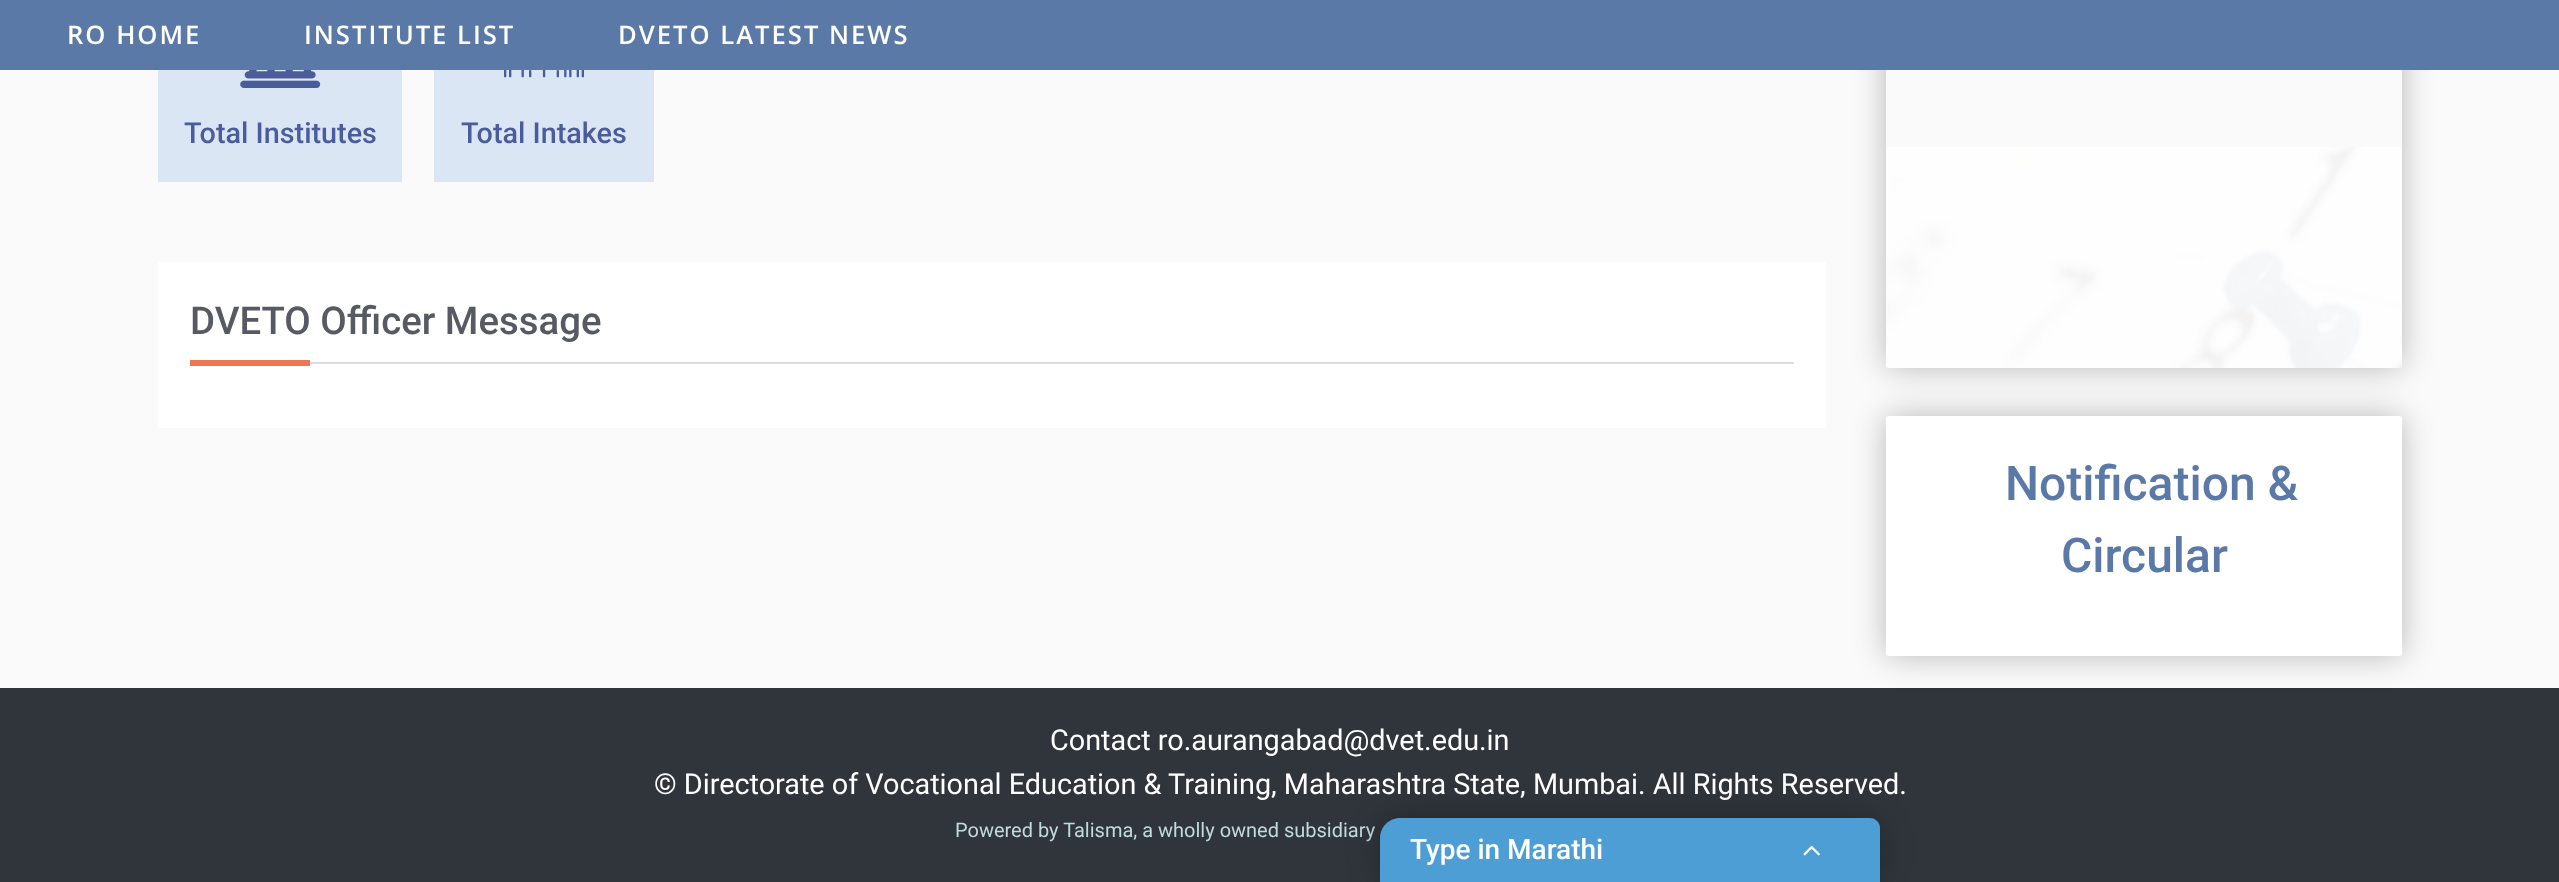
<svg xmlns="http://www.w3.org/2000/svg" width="2559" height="882">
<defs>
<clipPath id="clip1"><path d="M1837 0h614v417h-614zm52-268h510c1.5 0 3 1.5 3 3v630c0 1.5-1.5 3-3 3h-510c-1.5 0-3-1.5-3-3v-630c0-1.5 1.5-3 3-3z" clip-rule="evenodd"/></clipPath>
</defs>
<rect width="100%" height="100%" fill="#fafafb"/>
<g clip-path="url(#clip1)">
<rect x="1886" y="-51" width="516" height="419" rx="3" fill="#00000042" filter="blur(16px)"/>
</g>
<rect width="2559" height="70" fill="#5a79a7"/>
<text x="67" y="44" style="font-family:Open Sans;font-size:25.6px;font-weight:600;letter-spacing:2px;fill:#fff">RO HOME</text>
<text x="304" y="44" style="font-family:Open Sans;font-size:25.6px;font-weight:600;letter-spacing:2px;fill:#fff">INSTITUTE LIST</text>
<text x="618" y="44" style="font-family:Open Sans;font-size:25.6px;font-weight:600;letter-spacing:2px;fill:#fff">DVETO LATEST NEWS</text>
<rect x="158" y="70" width="244" height="112" fill="#dbe6f5"/>
<image x="240" y="70" width="81" height="18" href="media/1.png"/>
<text x="184" y="143" style="font-family:Roboto;font-size:28.8px;font-weight:500;fill:#4b5c9a">Total Institutes</text>
<rect x="434" y="70" width="220" height="112" fill="#dbe6f5"/>
<image x="504" y="70" width="80" height="8" href="media/2.png"/>
<text x="461" y="143" style="font-family:Roboto;font-size:28.8px;font-weight:500;fill:#4b5c9a">Total Intakes</text>
<rect x="158" y="262" width="1668" height="166" fill="#fff"/>
<text x="190" y="334" style="font-family:Roboto;font-size:38.4px;font-weight:500;fill:#585a63">DVETO Officer Message</text>
<rect x="310" y="362" width="1484" height="2" fill="#ddd"/>
<rect x="190" y="360" width="120" height="6" fill="#ec7754"/>
<image x="1886" y="147" width="516" height="221" href="media/3.png"/>
<rect y="688" width="2559" height="194" fill="#2f353b"/>
<rect x="1886" y="416" width="516" height="240" rx="3" fill="#00000042" filter="blur(16px)"/>
<rect x="1886" y="416" width="516" height="240" rx="3" fill="#fff"/>
<text x="2005" y="500" style="font-family:Roboto;font-size:48px;font-weight:500;fill:#5a79a7">Notification &amp;</text>
<text x="2061" y="572" style="font-family:Roboto;font-size:48px;font-weight:500;fill:#5a79a7">Circular</text>
<text x="1050" y="750" style="font-family:Roboto;font-size:28.8px;fill:#fff">Contact ro.aurangabad@dvet.edu.in</text>
<text x="654" y="794" style="font-family:Roboto;font-size:28.8px;fill:#fff">© Directorate of Vocational Education &amp; Training, Maharashtra State, Mumbai. All Rights Reserved.</text>
<text x="955" y="837" style="font-family:Roboto;font-size:20px;fill:#c0dade">Powered by Talisma, a wholly owned subsidiary</text>
<rect x="1380" y="818" width="500" height="64" rx="20" fill="#00000042" filter="blur(16px)"/>
<path d="M1400 818h470c5.5 0 10 4.5 10 10v54h-500v-44c0-11 9-20 20-20z" fill="#4e9ed6"/>
<text x="1410" y="859" style="font-family:Roboto;font-size:28px;font-weight:500;fill:#fff">Type in Marathi</text>
<image x="1803" y="845" width="17" height="11" href="media/4.png"/>
</svg>
